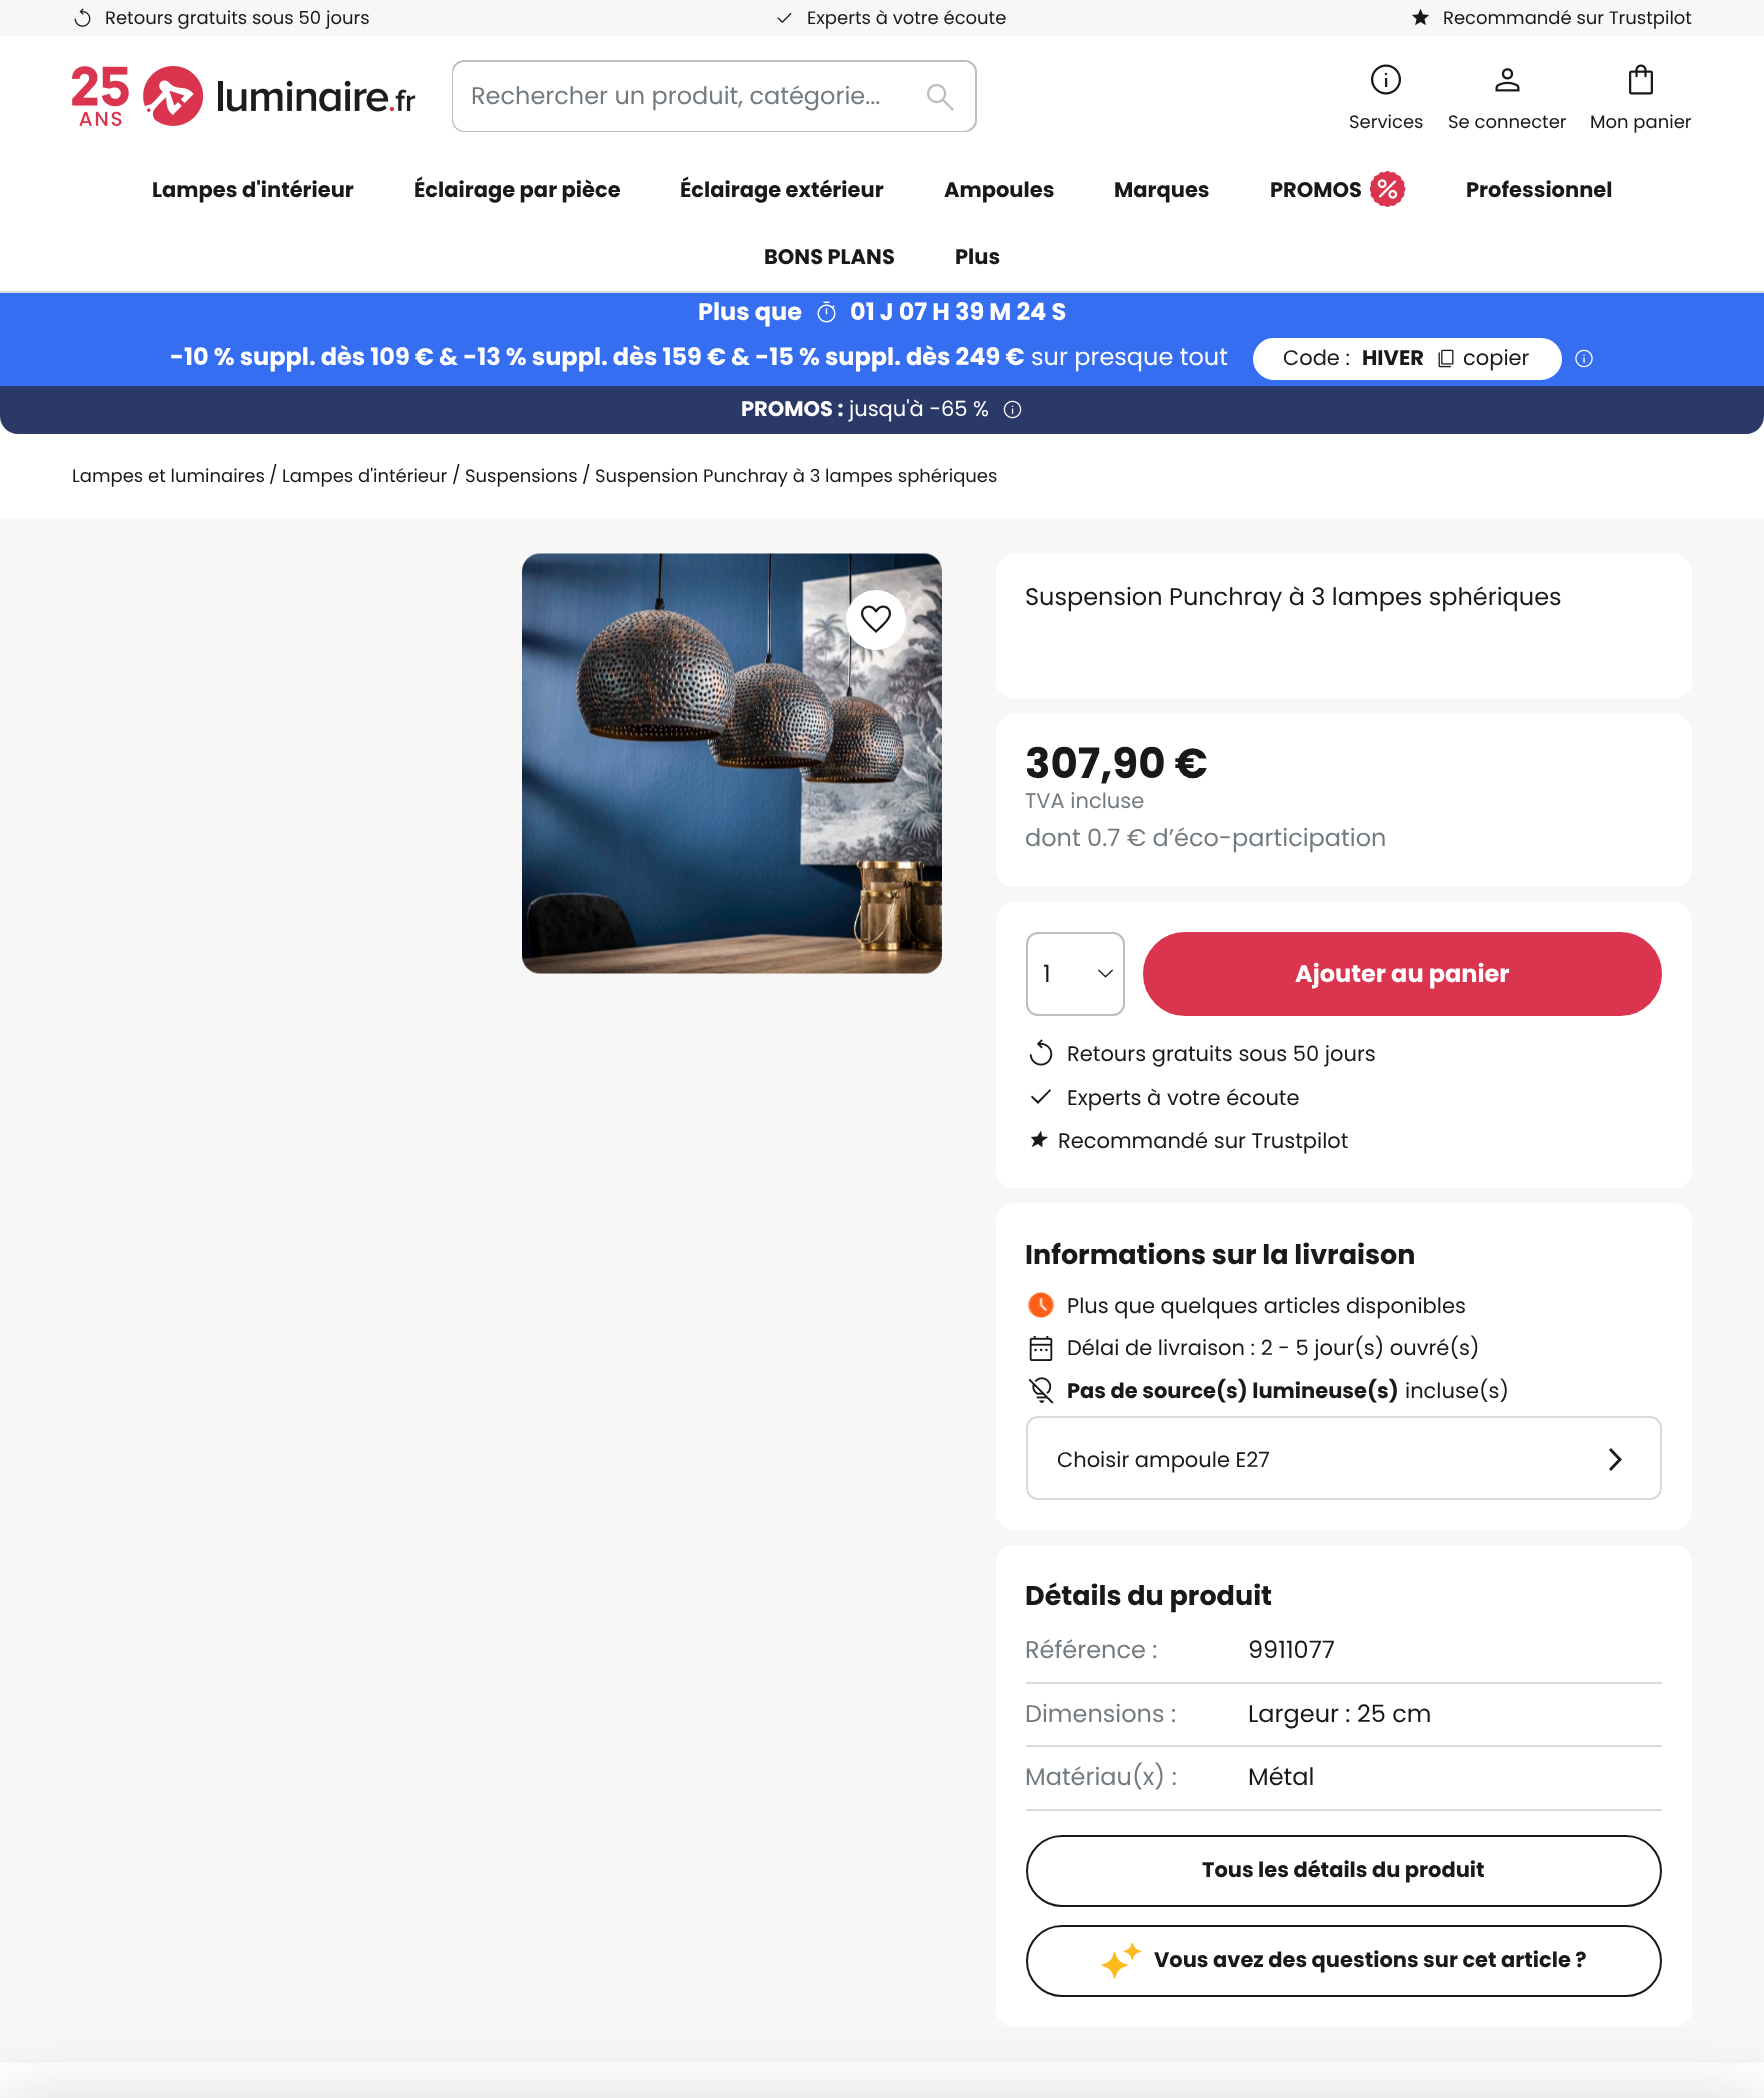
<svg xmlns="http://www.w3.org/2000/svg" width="1764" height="2098">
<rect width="100%" height="100%" fill="#fff"/>
<rect width="1764" height="36" fill="#f7f7f8"/>
<image x="74" y="8" width="17" height="19" href="media/1.png"/>
<text x="105" y="24" style="font-family:Poppins;font-size:18px;fill:#191919">Retours gratuits sous 50 jours</text>
<image x="777" y="12" width="15" height="11" href="media/2.png"/>
<text x="807" y="24" style="font-family:Poppins;font-size:18px;fill:#191919">Experts à votre écoute</text>
<image x="1412" y="8" width="17" height="18" href="media/3.png"/>
<text x="1443" y="24" style="font-family:Poppins;font-size:18px;fill:#191919">Recommandé sur Trustpilot</text>
<image x="72" y="66" width="344" height="60" href="media/4.png"/>
<rect x="453" y="61" width="523" height="70" rx="11" fill="none" stroke="#b9bec2" stroke-width="2"/>
<rect x="453" y="62" width="522" height="69" rx="12" fill="#fff"/>
<text x="471" y="104" style="font-family:Poppins;font-size:24px;fill:#737b80">Rechercher un produit, catégorie...</text>
<image x="927" y="84" width="27" height="27" href="media/5.png"/>
<image x="1371" y="64" width="30" height="31" href="media/6.png"/>
<text x="1349" y="128" style="font-family:Poppins;font-size:18px;fill:#191919">Services</text>
<image x="1495" y="68" width="25" height="24" href="media/7.png"/>
<text x="1448" y="128" style="font-family:Poppins;font-size:18px;fill:#191919">Se connecter</text>
<image x="1629" y="64" width="24" height="31" href="media/8.png"/>
<text x="1590" y="128" style="font-family:Poppins;font-size:18px;fill:#191919">Mon panier</text>
<rect y="291" width="1764" height="2" fill="#d7dbdd"/>
<text x="152" y="197" style="font-family:Poppins;font-size:21px;font-weight:bold;fill:#191919">Lampes d'intérieur</text>
<text x="414" y="197" style="font-family:Poppins;font-size:21px;font-weight:bold;fill:#191919">Éclairage par pièce</text>
<text x="680" y="197" style="font-family:Poppins;font-size:21px;font-weight:bold;fill:#191919">Éclairage extérieur</text>
<text x="944" y="197" style="font-family:Poppins;font-size:21px;font-weight:bold;fill:#191919">Ampoules</text>
<text x="1114" y="197" style="font-family:Poppins;font-size:21px;font-weight:bold;fill:#191919">Marques</text>
<text x="1270" y="197" style="font-family:Poppins;font-size:21px;font-weight:bold;fill:#191919">PROMOS</text>
<image x="1370" y="171" width="36" height="36" href="media/9.png"/>
<text x="1466" y="197" style="font-family:Poppins;font-size:21px;font-weight:bold;fill:#191919">Professionnel</text>
<text x="764" y="264" style="font-family:Poppins;font-size:21px;font-weight:bold;fill:#191919">BONS PLANS</text>
<text x="955" y="264" style="font-family:Poppins;font-size:21px;font-weight:bold;fill:#191919">Plus</text>
<rect y="293" width="1764" height="93" fill="#356ef1"/>
<text x="698" y="320" style="font-family:Poppins;font-size:24px;font-weight:bold;fill:#fff">Plus que</text>
<image x="817" y="301" width="19" height="22" href="media/10.png"/>
<text x="850" y="320" style="font-family:Poppins;font-size:24px;font-weight:bold;fill:#fff">01 J 07 H 39 M 24 S</text>
<text x="170" y="365" style="font-family:Poppins;font-size:24px;font-weight:bold;fill:#fff">-10 % suppl. dès 109 € &amp; -13 % suppl. dès 159 € &amp; -15 % suppl. dès 249 €</text>
<text x="1031" y="365" style="font-family:Poppins;font-size:24px;fill:#fff">sur presque tout</text>
<rect x="1254" y="339" width="307" height="40" rx="20" fill="#fff" stroke="#fff" stroke-width="2"/>
<text x="1283" y="365" style="font-family:Poppins;font-size:21px;fill:#191919">Code :</text>
<text x="1362" y="365" style="font-family:Poppins;font-size:21px;font-weight:bold;fill:#191919">HIVER</text>
<image x="1438" y="349" width="16" height="19" href="media/11.png"/>
<text x="1463" y="365" style="font-family:Poppins;font-size:21px;fill:#191919">copier</text>
<image x="1575" y="349" width="18" height="19" href="media/12.png"/>
<path d="M0 386h1764v30c0 10-8 18-18 18h-1728c-10 0-18-8-18-18z" fill="#2b3968"/>
<text x="741" y="416" style="font-family:Poppins;font-size:21px;font-weight:bold;fill:#fff">PROMOS :</text>
<text x="849" y="416" style="font-family:Poppins;font-size:21px;fill:#fff">jusqu'à -65 %</text>
<image x="1003" y="400" width="19" height="19" href="media/13.png"/>
<text x="72" y="482" style="font-family:Poppins;font-size:18px;fill:#191919">Lampes et luminaires</text>
<text x="269" y="481" style="font-family:Poppins;font-size:18px;fill:#191919">/</text>
<text x="282" y="482" style="font-family:Poppins;font-size:18px;fill:#191919">Lampes d'intérieur</text>
<text x="452" y="481" style="font-family:Poppins;font-size:18px;fill:#191919">/</text>
<text x="465" y="482" style="font-family:Poppins;font-size:18px;fill:#191919">Suspensions</text>
<text x="582" y="481" style="font-family:Poppins;font-size:18px;fill:#191919">/</text>
<text x="595" y="482" style="font-family:Poppins;font-size:18px;fill:#191919">Suspension Punchray à 3 lampes sphériques</text>
<rect y="518" width="1764" height="1545" fill="#f7f7f8"/>
<image x="522" y="553" width="420" height="421" href="media/14.png"/>
<circle cx="876" cy="620" r="30" fill="#fff"/>
<image x="861" y="605" width="30" height="28" href="media/15.png"/>
<rect x="996" y="554" width="696" height="145" rx="18" fill="#fff"/>
<text x="1025" y="605" style="font-family:Poppins;font-size:24px;fill:#191919">Suspension Punchray à 3 lampes sphériques</text>
<rect x="996" y="714" width="696" height="173" rx="18" fill="#fff"/>
<text x="1025" y="778" style="font-family:Poppins;font-size:42px;font-weight:bold;fill:#191919">307,90 €</text>
<text x="1025" y="808" style="font-family:Poppins;font-size:21px;fill:#737b80">TVA incluse</text>
<text x="1025" y="846" style="font-family:Poppins;font-size:24px;fill:#737b80">dont 0.7 € d’éco-participation</text>
<rect x="996" y="902" width="696" height="286" rx="18" fill="#fff"/>
<rect x="1027" y="933" width="97" height="82" rx="11" fill="none" stroke="#b9bec2" stroke-width="2"/>
<text x="1043" y="982" style="font-family:Poppins;font-size:24px;fill:#191919">1</text>
<image x="1098" y="969" width="15" height="9" href="media/16.png"/>
<rect x="1144" y="933" width="517" height="82" rx="41" fill="#da344e" stroke="#da344e" stroke-width="2"/>
<text x="1295" y="982" style="font-family:Poppins;font-size:24px;font-weight:bold;fill:#fff">Ajouter au panier</text>
<rect x="996" y="1545" width="696" height="482" rx="18" fill="#fff"/>
<rect y="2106" width="1764" height="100" fill="#19191933" filter="blur(36px)"/>
<image x="1029" y="1039" width="24" height="27" href="media/17.png"/>
<text x="1067" y="1061" style="font-family:Poppins;font-size:21px;fill:#191919">Retours gratuits sous 50 jours</text>
<path d="M1038 1104l-7-7l1-1.5l6 5.5l12-12l1 1.5z" fill="#191919"/>
<text x="1067" y="1105" style="font-family:Poppins;font-size:21px;fill:#191919">Experts à votre écoute</text>
<image x="1031" y="1130" width="17" height="18" href="media/18.png"/>
<text x="1058" y="1148" style="font-family:Poppins;font-size:21px;fill:#191919">Recommandé sur Trustpilot</text>
<rect x="996" y="1203" width="696" height="327" rx="18" fill="#fff"/>
<text x="1025" y="1264" style="font-family:Poppins;font-size:27px;font-weight:bold;fill:#191919">Informations sur la livraison</text>
<image x="1027" y="1292" width="28" height="26" href="media/19.png"/>
<text x="1067" y="1313" style="font-family:Poppins;font-size:21px;fill:#191919">Plus que quelques articles disponibles</text>
<image x="1029" y="1336" width="24" height="25" href="media/20.png"/>
<text x="1067" y="1355" style="font-family:Poppins;font-size:21px;fill:#191919">Délai de livraison : 2 - 5 jour(s) ouvré(s)</text>
<image x="1028" y="1377" width="26" height="27" href="media/21.png"/>
<text x="1067" y="1398" style="font-family:Poppins;font-size:21px;font-weight:bold;fill:#191919">Pas de source(s) lumineuse(s)</text>
<text x="1405" y="1398" style="font-family:Poppins;font-size:21px;fill:#191919">incluse(s)</text>
<rect x="1027" y="1417" width="634" height="82" rx="11" fill="none" stroke="#d7dbdd" stroke-width="2"/>
<text x="1057" y="1467" style="font-family:Poppins;font-size:21px;fill:#191919">Choisir ampoule E27</text>
<path d="M1618 1459.5l-9-9.5l2-2l11 11.5l-11 11.5l-2-2z" fill="#191919"/>
<text x="1025" y="1605" style="font-family:Poppins;font-size:27px;font-weight:bold;fill:#191919">Détails du produit</text>
<rect x="1026" y="1682" width="636" height="2" fill="#d7dbdd"/>
<text x="1025" y="1658" style="font-family:Poppins;font-size:24px;fill:#737b80">Référence :</text>
<text x="1248" y="1658" style="font-family:Poppins;font-size:24px;fill:#191919">9911077</text>
<rect x="1026" y="1745" width="636" height="2" fill="#d7dbdd"/>
<text x="1025" y="1722" style="font-family:Poppins;font-size:24px;fill:#737b80">Dimensions :</text>
<text x="1248" y="1722" style="font-family:Poppins;font-size:24px;fill:#191919">Largeur : 25 cm</text>
<rect x="1026" y="1809" width="636" height="2" fill="#d7dbdd"/>
<text x="1025" y="1785" style="font-family:Poppins;font-size:24px;fill:#737b80">Matériau(x) :</text>
<text x="1248" y="1785" style="font-family:Poppins;font-size:24px;fill:#191919">Métal</text>
<rect x="1027" y="1836" width="634" height="70" rx="35" fill="none" stroke="#191919" stroke-width="2"/>
<text x="1202" y="1877" style="font-family:Poppins;font-size:21px;font-weight:bold;fill:#191919">Tous les détails du produit</text>
<rect x="1027" y="1926" width="634" height="70" rx="35" fill="none" stroke="#191919" stroke-width="2"/>
<image x="1101" y="1943" width="41" height="36" href="media/22.png"/>
<text x="1154" y="1967" style="font-family:Poppins;font-size:21px;font-weight:bold;fill:#191919">Vous avez des questions sur cet article ?</text>
</svg>
